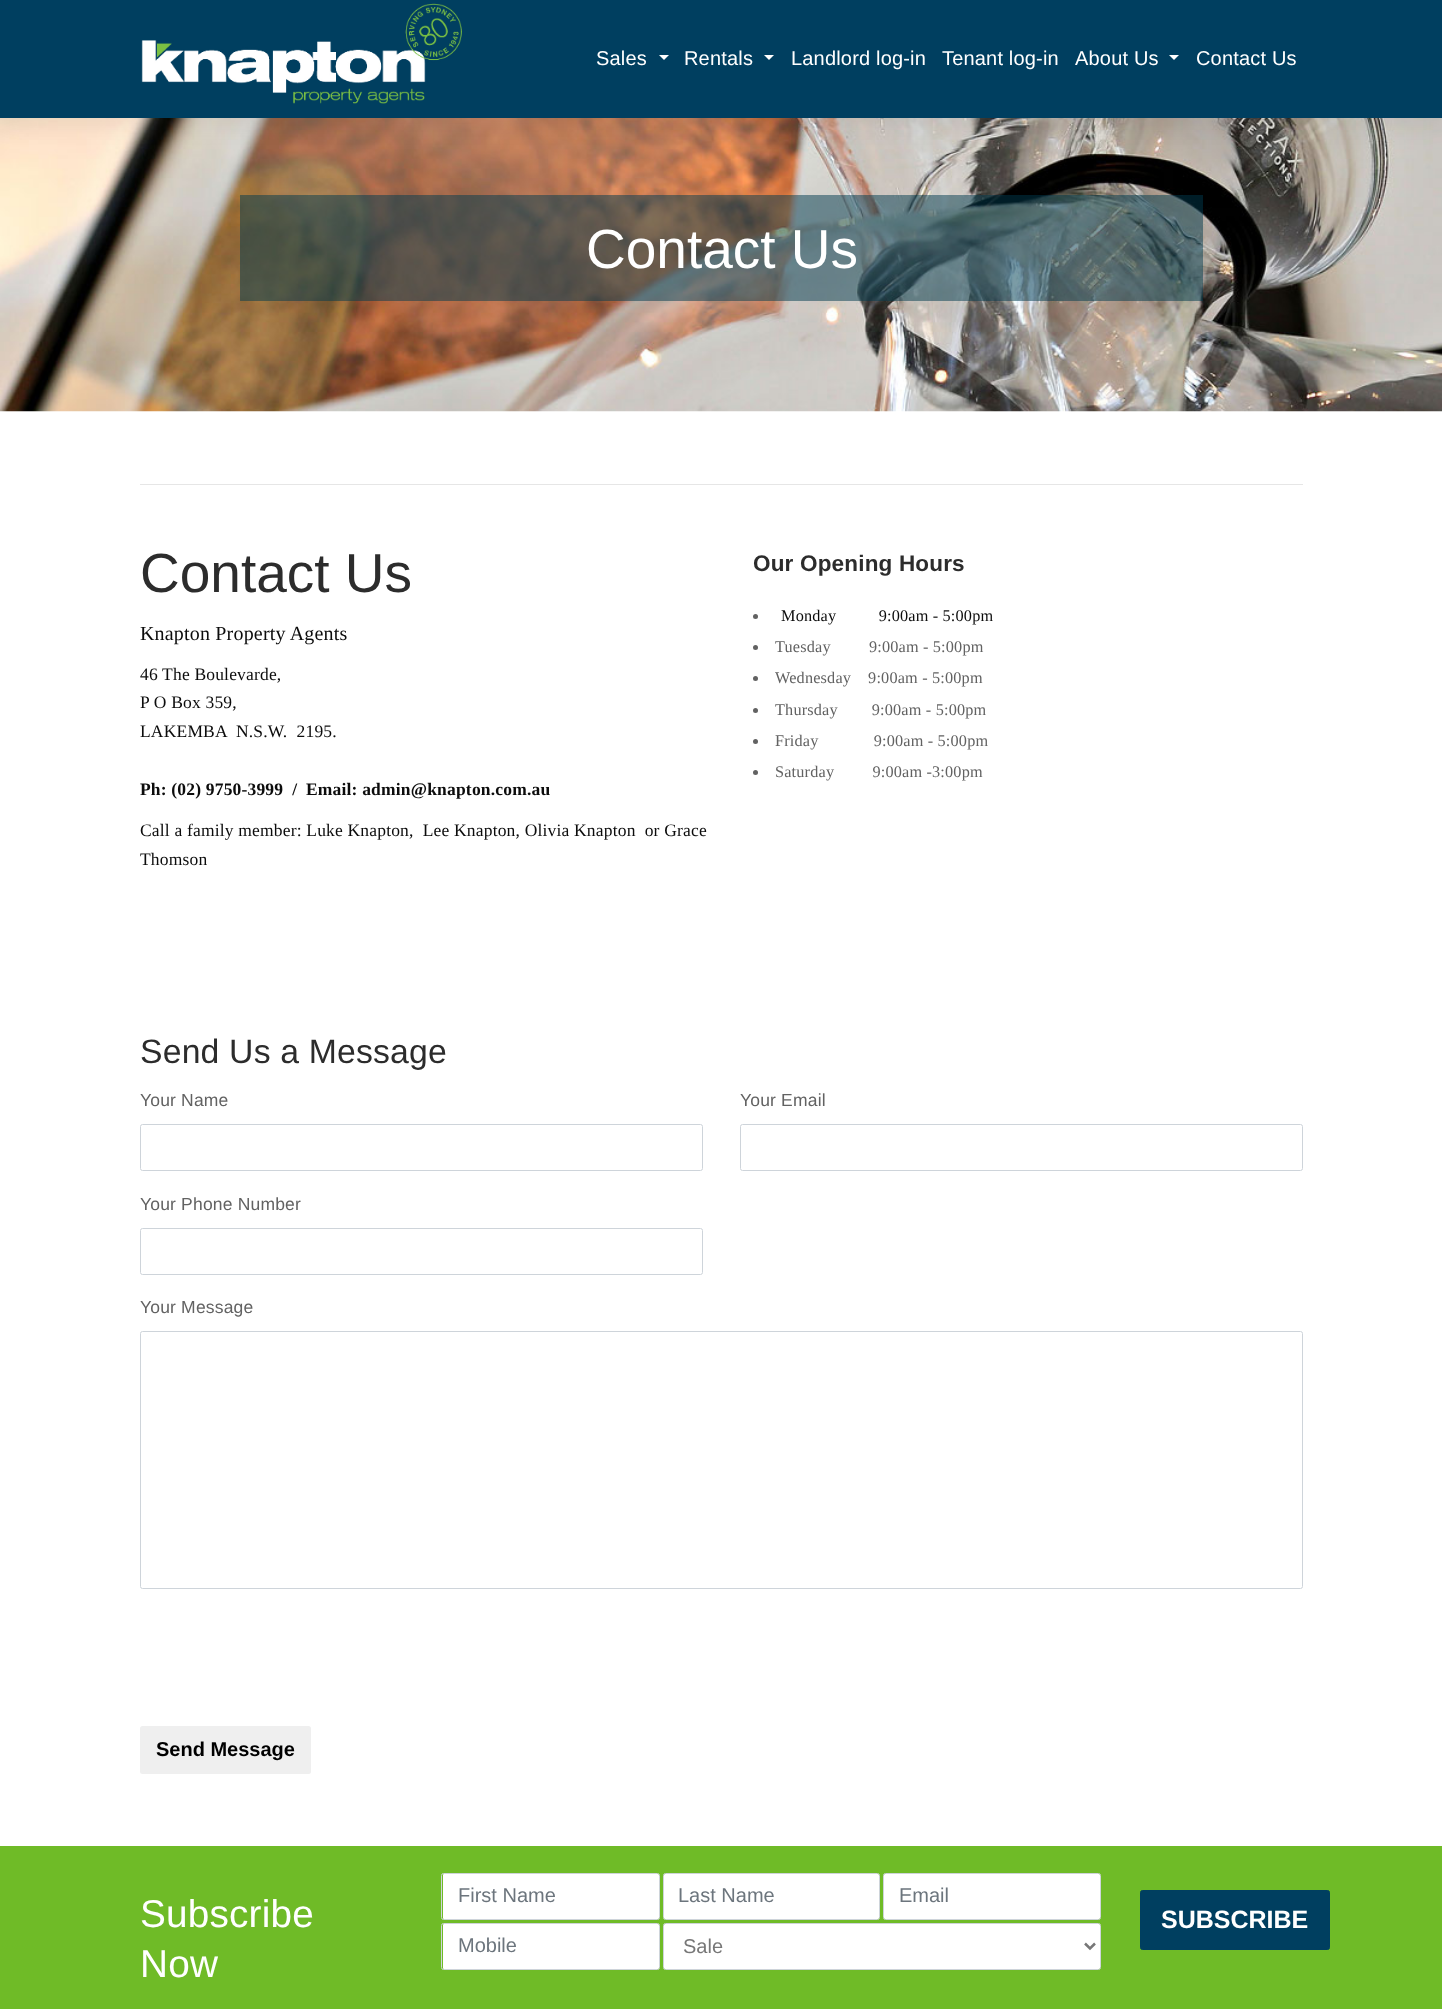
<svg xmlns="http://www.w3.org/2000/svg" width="1442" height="2009">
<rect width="100%" height="100%" fill="#fff"/>
<image x="0" y="118" width="1442" height="294" href="media/2.png"/>
<rect y="10" width="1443" height="118" fill="#0000000d" filter="blur(10px)"/>
<rect width="1442" height="118" fill="#003f60"/>
<image x="141" y="3" width="321" height="101" href="media/1.png"/>
<text x="596" y="65" style="font-family:Liberation Sans;font-size:20px;letter-spacing:0.18px;fill:#fff">Sales</text>
<path d="M659 55h10l-5 5z" fill="#fff"/>
<text x="684" y="65" style="font-family:Liberation Sans;font-size:20px;letter-spacing:0.18px;fill:#fff">Rentals</text>
<path d="M764 55h10l-5 5z" fill="#fff"/>
<text x="791" y="65" style="font-family:Liberation Sans;font-size:20px;letter-spacing:0.18px;fill:#fff">Landlord log-in</text>
<text x="942" y="65" style="font-family:Liberation Sans;font-size:20px;letter-spacing:0.18px;fill:#fff">Tenant log-in</text>
<text x="1075" y="65" style="font-family:Liberation Sans;font-size:20px;letter-spacing:0.18px;fill:#fff">About Us</text>
<path d="M1169 55h10l-5 5z" fill="#fff"/>
<text x="1196" y="65" style="font-family:Liberation Sans;font-size:20px;letter-spacing:0.18px;fill:#fff">Contact Us</text>
<rect x="240" y="195" width="963" height="106" fill="#00394d80"/>
<text x="586" y="268" style="font-family:Liberation Sans;font-size:55px;fill:#fff">Contact Us</text>
<text x="140" y="592" style="font-family:Liberation Sans;font-size:55px;fill:#2c2c2c">Contact Us</text>
<text x="140" y="640" style="font-family:Liberation Serif;font-size:20px;letter-spacing:0.18px;fill:#0c0c0c">Knapton Property Agents</text>
<text x="140" y="680" style="font-family:Liberation Serif;font-size:17.5px;letter-spacing:0.18px;fill:#0c0c0c">46 The Boulevarde,</text>
<text x="140" y="708" style="font-family:Liberation Serif;font-size:17.5px;letter-spacing:0.18px;fill:#0c0c0c">P O Box 359,</text>
<text x="140" y="737" style="font-family:Liberation Serif;font-size:17.5px;letter-spacing:0.18px;fill:#0c0c0c" xml:space="preserve">LAKEMBA  N.S.W.  2195.</text>
<text x="140" y="795" style="font-family:Liberation Serif;font-size:17.5px;font-weight:bold;letter-spacing:0.18px;fill:#0c0c0c" xml:space="preserve">Ph: (02) 9750-3999  /</text>
<text x="306" y="795" style="font-family:Liberation Serif;font-size:17.5px;font-weight:bold;letter-spacing:0.18px;fill:#0c0c0c">Email: admin@knapton.com.au</text>
<text x="140" y="836" style="font-family:Liberation Serif;font-size:17.5px;letter-spacing:0.18px;fill:#0c0c0c" xml:space="preserve">Call a family member: Luke Knapton,  Lee Knapton, Olivia Knapton  or Grace</text>
<text x="140" y="865" style="font-family:Liberation Serif;font-size:17.5px;letter-spacing:0.18px;fill:#0c0c0c">Thomson</text>
<text x="753" y="571" style="font-family:Liberation Sans;font-size:22.5px;font-weight:bold;letter-spacing:0.18px;fill:#2c2c2c">Our Opening Hours</text>
<circle cx="755.5" cy="616.5" r="2.5" fill="#626262"/>
<text x="781" y="621" style="font-family:Liberation Serif;font-size:16.25px;letter-spacing:0.18px;fill:#0c0c0c" xml:space="preserve">Monday          9:00am - 5:00pm</text>
<circle cx="755.5" cy="647.5" r="2.5" fill="#626262"/>
<text x="775" y="652" style="font-family:Liberation Serif;font-size:16.25px;letter-spacing:0.18px;fill:#626262" xml:space="preserve">Tuesday         9:00am - 5:00pm</text>
<circle cx="755.5" cy="678.5" r="2.5" fill="#626262"/>
<text x="775" y="683" style="font-family:Liberation Serif;font-size:16.25px;letter-spacing:0.18px;fill:#626262" xml:space="preserve">Wednesday    9:00am - 5:00pm</text>
<circle cx="755.5" cy="710.5" r="2.5" fill="#626262"/>
<text x="775" y="715" style="font-family:Liberation Serif;font-size:16.25px;letter-spacing:0.18px;fill:#626262" xml:space="preserve">Thursday        9:00am - 5:00pm</text>
<circle cx="755.5" cy="741.5" r="2.5" fill="#626262"/>
<text x="775" y="746" style="font-family:Liberation Serif;font-size:16.25px;letter-spacing:0.18px;fill:#626262" xml:space="preserve">Friday             9:00am - 5:00pm</text>
<circle cx="755.5" cy="772.5" r="2.5" fill="#626262"/>
<text x="775" y="777" style="font-family:Liberation Serif;font-size:16.25px;letter-spacing:0.18px;fill:#626262" xml:space="preserve">Saturday         9:00am -3:00pm</text>
<rect x="140" y="484" width="1163" height="1" fill="#e6e6e6"/>
<text x="140" y="1063" style="font-family:Liberation Sans;font-size:33.75px;letter-spacing:0.18px;fill:#2c2c2c">Send Us a Message</text>
<text x="140" y="1106" style="font-family:Liberation Sans;font-size:17.5px;letter-spacing:0.18px;fill:#626262">Your Name</text>
<rect x="140.5" y="1124.5" width="562" height="46" rx="2" fill="none" stroke="#ced4da"/>
<text x="740" y="1106" style="font-family:Liberation Sans;font-size:17.5px;letter-spacing:0.18px;fill:#626262">Your Email</text>
<rect x="740.5" y="1124.5" width="562" height="46" rx="2" fill="none" stroke="#ced4da"/>
<text x="140" y="1210" style="font-family:Liberation Sans;font-size:17.5px;letter-spacing:0.18px;fill:#626262">Your Phone Number</text>
<rect x="140.5" y="1228.5" width="562" height="46" rx="2" fill="none" stroke="#ced4da"/>
<text x="140" y="1313" style="font-family:Liberation Sans;font-size:17.5px;letter-spacing:0.18px;fill:#626262">Your Message</text>
<rect x="140.5" y="1331.5" width="1162" height="257" rx="2" fill="none" stroke="#ced4da"/>
<rect x="140" y="1726" width="171" height="48" rx="2.5" fill="#efefef"/>
<text x="156" y="1756" style="font-family:Liberation Sans;font-size:20px;font-weight:bold;fill:#000">Send Message</text>
<rect y="1846" width="1442" height="163" fill="#6fbb27"/>
<text x="140" y="1927" style="font-family:Liberation Sans;font-size:38.75px;letter-spacing:0.18px;fill:#fff">Subscribe</text>
<text x="140" y="1977" style="font-family:Liberation Sans;font-size:38.75px;letter-spacing:0.18px;fill:#fff">Now</text>
<rect x="443" y="1874" width="216" height="45" rx="1" fill="#fff"/>
<rect x="441.5" y="1873.5" width="218" height="46" rx="2" fill="none" stroke="#ced4da"/>
<text x="458" y="1902" style="font-family:Liberation Sans;font-size:20px;fill:#6c757d">First Name</text>
<rect x="664" y="1874" width="215" height="45" rx="1" fill="#fff"/>
<rect x="663.5" y="1873.5" width="216" height="46" rx="2" fill="none" stroke="#ced4da"/>
<text x="678" y="1902" style="font-family:Liberation Sans;font-size:20px;fill:#6c757d">Last Name</text>
<rect x="884" y="1874" width="216" height="45" rx="1" fill="#fff"/>
<rect x="883.5" y="1873.5" width="217" height="46" rx="2" fill="none" stroke="#ced4da"/>
<text x="899" y="1902" style="font-family:Liberation Sans;font-size:20px;fill:#6c757d">Email</text>
<rect x="443" y="1924" width="216" height="45" rx="1" fill="#fff"/>
<rect x="441.5" y="1923.5" width="218" height="46" rx="2" fill="none" stroke="#ced4da"/>
<text x="458" y="1952" style="font-family:Liberation Sans;font-size:20px;fill:#6c757d">Mobile</text>
<rect x="664" y="1924" width="436" height="45" rx="1" fill="#fff"/>
<rect x="663.5" y="1923.5" width="437" height="46" rx="2" fill="none" stroke="#ced4da"/>
<path d="M1085 1943.5l5 5l5-5" fill="none" stroke="#777" stroke-width="2.5"/>
<text x="683" y="1953" style="font-family:Liberation Sans;font-size:20px;fill:#777">Sale</text>
<rect x="1140.5" y="1890.5" width="189" height="59" rx="2" fill="#003f60" stroke="#003f60"/>
<text x="1161" y="1928" style="font-family:Liberation Sans;font-size:25px;font-weight:bold;fill:#fff">SUBSCRIBE</text>
</svg>
